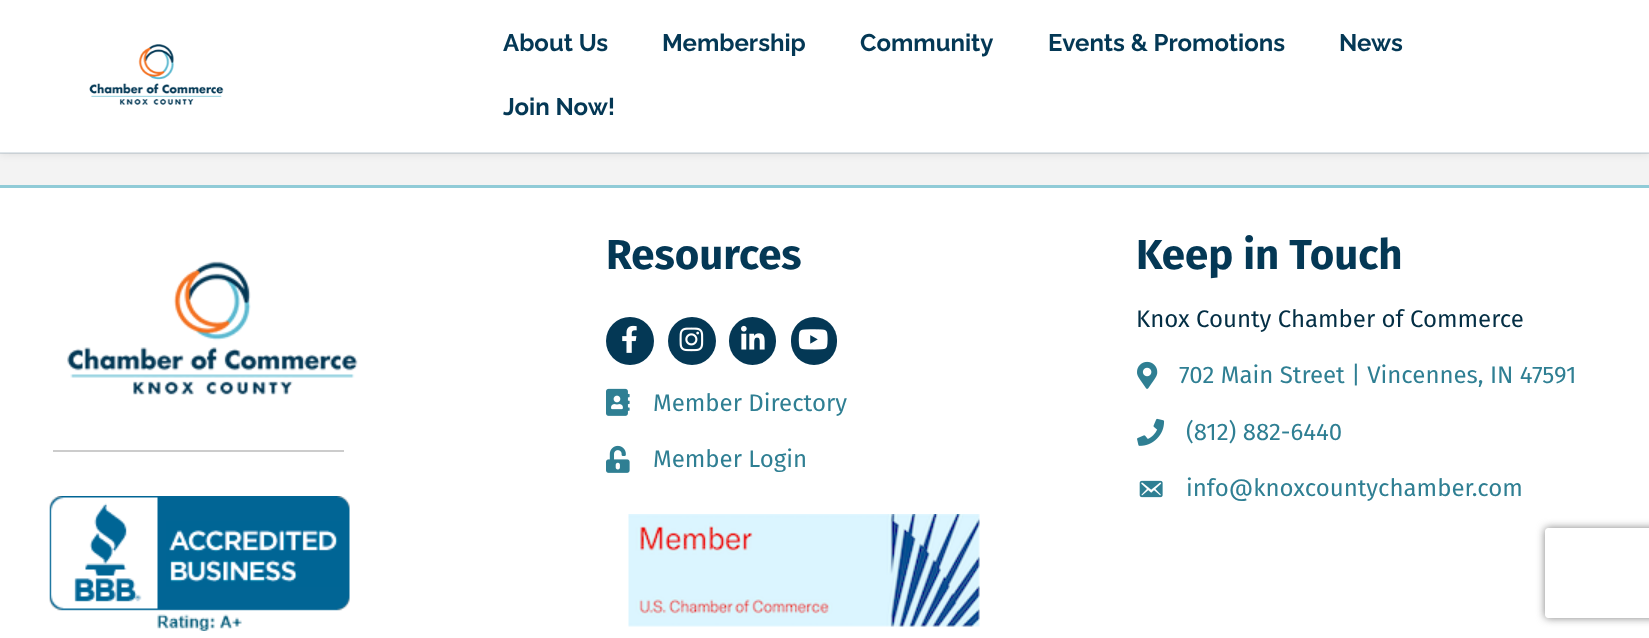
<svg xmlns="http://www.w3.org/2000/svg" width="1649" height="638">
<defs>
<clipPath id="clip1"><path d="M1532 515h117v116h-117zm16 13h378c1.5 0 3 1.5 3 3v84c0 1.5-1.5 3-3 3h-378c-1.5 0-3-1.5-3-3v-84c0-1.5 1.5-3 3-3z" clip-rule="evenodd"/></clipPath>
</defs>
<rect width="100%" height="100%" fill="#f3f3f3"/>
<rect width="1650" height="153" fill="#0000001a" filter="blur(5px)"/>
<rect width="1649" height="153" fill="#fff"/>
<rect y="152" width="1649" height="2" fill="#04385521"/>
<image x="89" y="44" width="135" height="61" href="media/1.png"/>
<text x="503" y="51" style="font-family:Raleway;font-size:24px;font-weight:100;fill:#043855">About Us</text>
<text x="662" y="51" style="font-family:Raleway;font-size:24px;font-weight:100;fill:#043855">Membership</text>
<text x="860" y="51" style="font-family:Raleway;font-size:24px;font-weight:100;fill:#043855">Community</text>
<text x="1048" y="51" style="font-family:Raleway;font-size:24px;font-weight:100;fill:#043855">Events &amp; Promotions</text>
<text x="1339" y="51" style="font-family:Raleway;font-size:24px;font-weight:100;fill:#043855">News</text>
<text x="503" y="115" style="font-family:Raleway;font-size:24px;font-weight:100;fill:#043855">Join Now!</text>
<rect y="188" width="1649" height="450" fill="#fff"/>
<rect y="185" width="1649" height="3" fill="#90cbd7"/>
<image x="67" y="261" width="291" height="134" href="media/2.png"/>
<rect x="53" y="450" width="291" height="2" fill="#ccc"/>
<image x="49" y="496" width="301" height="135" href="media/3.png"/>
<text x="606" y="269" style="font-family:Fira Sans;font-size:42px;font-weight:bold;fill:#043855">Resources</text>
<circle cx="630" cy="341" r="24" fill="#043855"/>
<image x="622" y="325" width="15" height="28" href="media/4.png"/>
<circle cx="692" cy="341" r="24" fill="#043855"/>
<image x="679" y="327" width="25" height="25" href="media/5.png"/>
<rect x="729" y="317" width="47" height="48" rx="23.5" fill="#043855"/>
<image x="741" y="325" width="24" height="25" href="media/6.png"/>
<rect x="791" y="317" width="46" height="48" rx="23" fill="#043855"/>
<image x="798" y="329" width="30" height="21" href="media/7.png"/>
<image x="606" y="388" width="24" height="28" href="media/8.png"/>
<text x="653" y="411" style="font-family:Fira Sans;font-size:24px;fill:#2f7f93">Member Directory</text>
<image x="606" y="445" width="24" height="28" href="media/9.png"/>
<text x="653" y="467" style="font-family:Fira Sans;font-size:24px;fill:#2f7f93">Member Login</text>
<image x="628" y="514" width="352" height="113" href="media/10.png"/>
<text x="1136" y="269" style="font-family:Fira Sans;font-size:42px;font-weight:bold;fill:#043855">Keep in Touch</text>
<text x="1136" y="327" style="font-family:Fira Sans;font-size:24px;fill:#032e44">Knox County Chamber of Commerce</text>
<image x="1137" y="361" width="21" height="28" href="media/11.png"/>
<text x="1179" y="383" style="font-family:Fira Sans;font-size:24px;fill:#2f7f93">702 Main Street | Vincennes, IN 47591</text>
<image x="1137" y="418" width="28" height="28" href="media/12.png"/>
<text x="1186" y="440" style="font-family:Fira Sans;font-size:24px;fill:#2f7f93">(812) 882-6440</text>
<image x="1139" y="480" width="24" height="18" href="media/13.png"/>
<text x="1186" y="496" style="font-family:Fira Sans;font-size:24px;fill:#2f7f93">info@knoxcountychamber.com</text>
<g clip-path="url(#clip1)">
<rect x="1545" y="528" width="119" height="90" rx="3" fill="#808080" filter="blur(4px)"/>
</g>
</svg>
